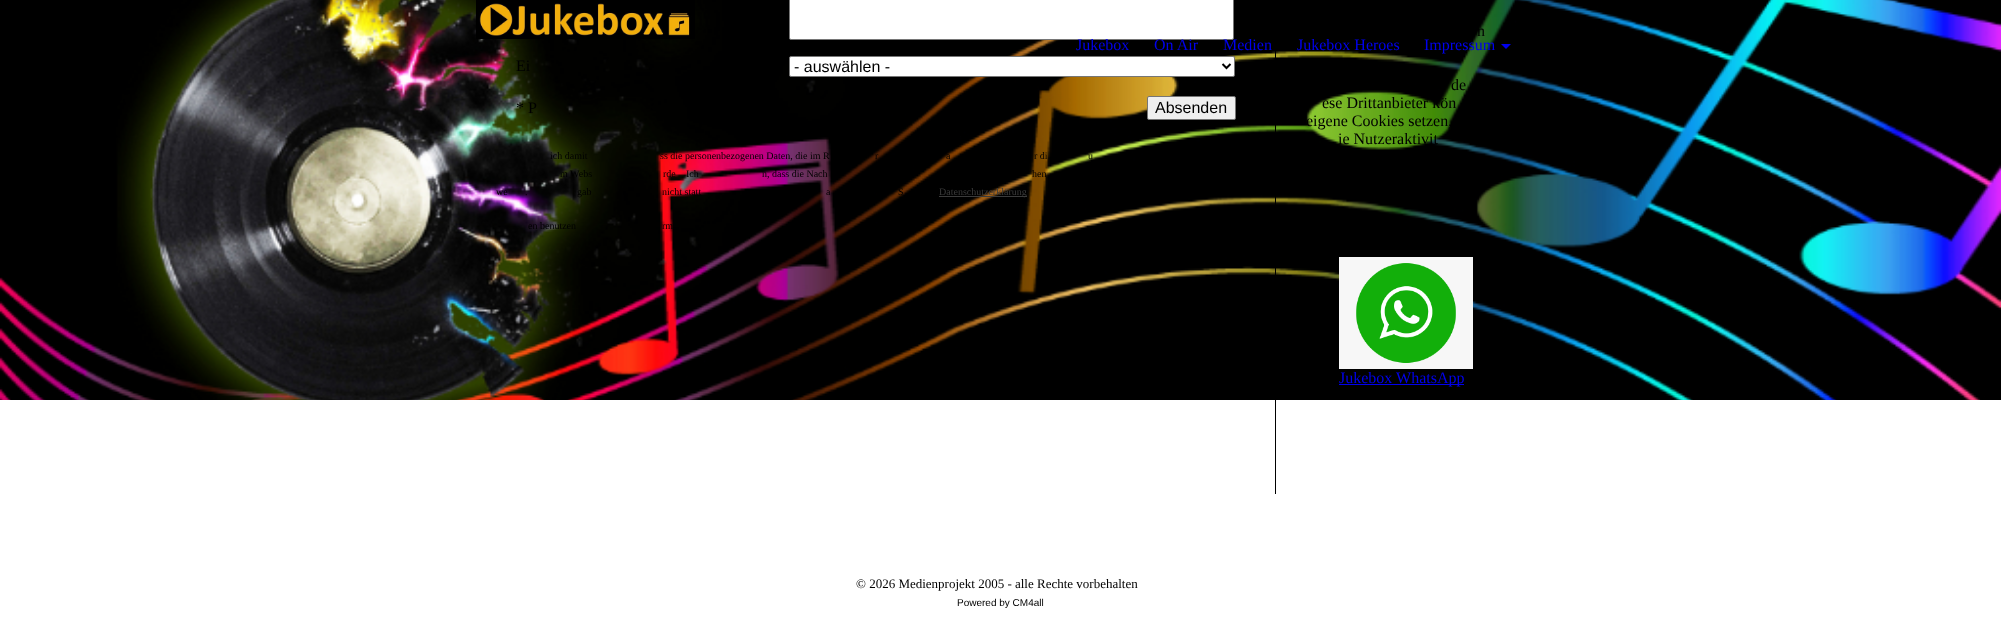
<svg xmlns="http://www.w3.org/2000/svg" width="2001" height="640">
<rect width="100%" height="100%" fill="#fff"/>
<image x="0" y="0" width="2001" height="400" href="media/1.png"/>
<rect x="789.5" y="-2.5" width="444" height="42" rx="1.5" fill="#fff" stroke="#767676"/>
<text x="516" y="71" style="font-family:Liberation Serif;font-size:16px;fill:#000">Ei</text>
<rect x="789.5" y="56.5" width="445" height="20" rx="1.5" fill="#fff" stroke="#767676"/>
<path d="M1222.5 64l4 4l4-4" fill="none" stroke="#000" stroke-width="2"/>
<text x="794" y="72" style="font-family:Liberation Sans;font-size:16px;fill:#000">- auswählen -</text>
<text x="516" y="113" style="font-family:Liberation Serif;font-size:16px;fill:#000">* P</text>
<rect x="1147.5" y="96.5" width="88" height="23" rx="1.5" fill="#efefef" stroke="#767676"/>
<text x="1155" y="113" style="font-family:Liberation Sans;font-size:16px;fill:#000">Absenden</text>
<text x="550" y="159" style="font-family:Liberation Serif;font-size:10px;fill:#000">ich damit</text>
<text x="660" y="159" style="font-family:Liberation Serif;font-size:10px;fill:#000">ss die personenbezogenen Daten, die im R</text>
<text x="875" y="159" style="font-family:Liberation Serif;font-size:10px;fill:#000">r</text>
<text x="946" y="159" style="font-family:Liberation Serif;font-size:10px;fill:#000">a</text>
<text x="1034" y="159" style="font-family:Liberation Serif;font-size:10px;fill:#000">r di</text>
<text x="1088" y="159" style="font-family:Liberation Serif;font-size:10px;fill:#000">u</text>
<text x="560" y="177" style="font-family:Liberation Serif;font-size:10px;fill:#000">m Webs</text>
<text x="663" y="177" style="font-family:Liberation Serif;font-size:10px;fill:#000">rde</text>
<text x="686" y="177" style="font-family:Liberation Serif;font-size:10px;fill:#000">Ich</text>
<text x="762" y="177" style="font-family:Liberation Serif;font-size:10px;fill:#000">n, dass die Nach</text>
<text x="1032" y="177" style="font-family:Liberation Serif;font-size:10px;fill:#000">hen</text>
<text x="496" y="195" style="font-family:Liberation Serif;font-size:10px;fill:#000">we</text>
<text x="525" y="195" style="font-family:Liberation Serif;font-size:10px;fill:#000">.</text>
<text x="577" y="195" style="font-family:Liberation Serif;font-size:10px;fill:#000">gab</text>
<text x="662" y="195" style="font-family:Liberation Serif;font-size:10px;fill:#000">nicht statt</text>
<text x="826" y="195" style="font-family:Liberation Serif;font-size:10px;fill:#000">a</text>
<text x="898" y="195" style="font-family:Liberation Serif;font-size:10px;fill:#000">S</text>
<rect x="939" y="196" width="88" height="1" fill="#3b3b3b"/>
<text x="939" y="195" style="font-family:Liberation Serif;font-size:10px;fill:#3b3b3b">Datenschutzerklärung</text>
<text x="528" y="229" style="font-family:Liberation Serif;font-size:10px;fill:#000">en benutzen</text>
<text x="662" y="229" style="font-family:Liberation Serif;font-size:10px;fill:#000">rm</text>
<rect x="1275" y="51" width="1" height="443" fill="#000"/>
<text x="1477" y="36" style="font-family:Liberation Serif;font-size:16px;fill:#000">n</text>
<text x="1451" y="90" style="font-family:Liberation Serif;font-size:16px;fill:#000">de</text>
<text x="1322" y="108" style="font-family:Liberation Serif;font-size:16px;fill:#000">ese Drittanbieter kön</text>
<text x="1306" y="126" style="font-family:Liberation Serif;font-size:16px;fill:#000">eigene Cookies setzen,</text>
<text x="1338" y="144" style="font-family:Liberation Serif;font-size:16px;fill:#000">ie Nutzeraktivit</text>
<image x="1339" y="257" width="134" height="112" href="media/2.png"/>
<rect x="1339" y="384" width="125" height="1" fill="#00e"/>
<text x="1339" y="383" style="font-family:Liberation Serif;font-size:16px;fill:#00e">Jukebox WhatsApp</text>
<image x="476" y="0" width="219" height="39" href="media/3.png"/>
<text x="1076" y="50" style="font-family:Liberation Serif;font-size:16px;fill:#00e">Jukebox</text>
<text x="1154" y="50" style="font-family:Liberation Serif;font-size:16px;fill:#00e">On Air</text>
<text x="1223" y="50" style="font-family:Liberation Serif;font-size:16px;fill:#00e">Medien</text>
<text x="1297" y="50" style="font-family:Liberation Serif;font-size:16px;fill:#00e">Jukebox Heroes</text>
<text x="1424" y="50" style="font-family:Liberation Serif;font-size:16px;fill:#00e">Impressum</text>
<path d="M1501 44h10l-5 5z" fill="#00e"/>
<text x="856" y="588" style="font-family:Liberation Serif;font-size:13px;fill:#000">© 2026 Medienprojekt 2005 - alle Rechte vorbehalten</text>
<text x="957" y="606" style="font-family:Liberation Sans;font-size:10px;fill:#000">Powered by CM4all</text>
</svg>
